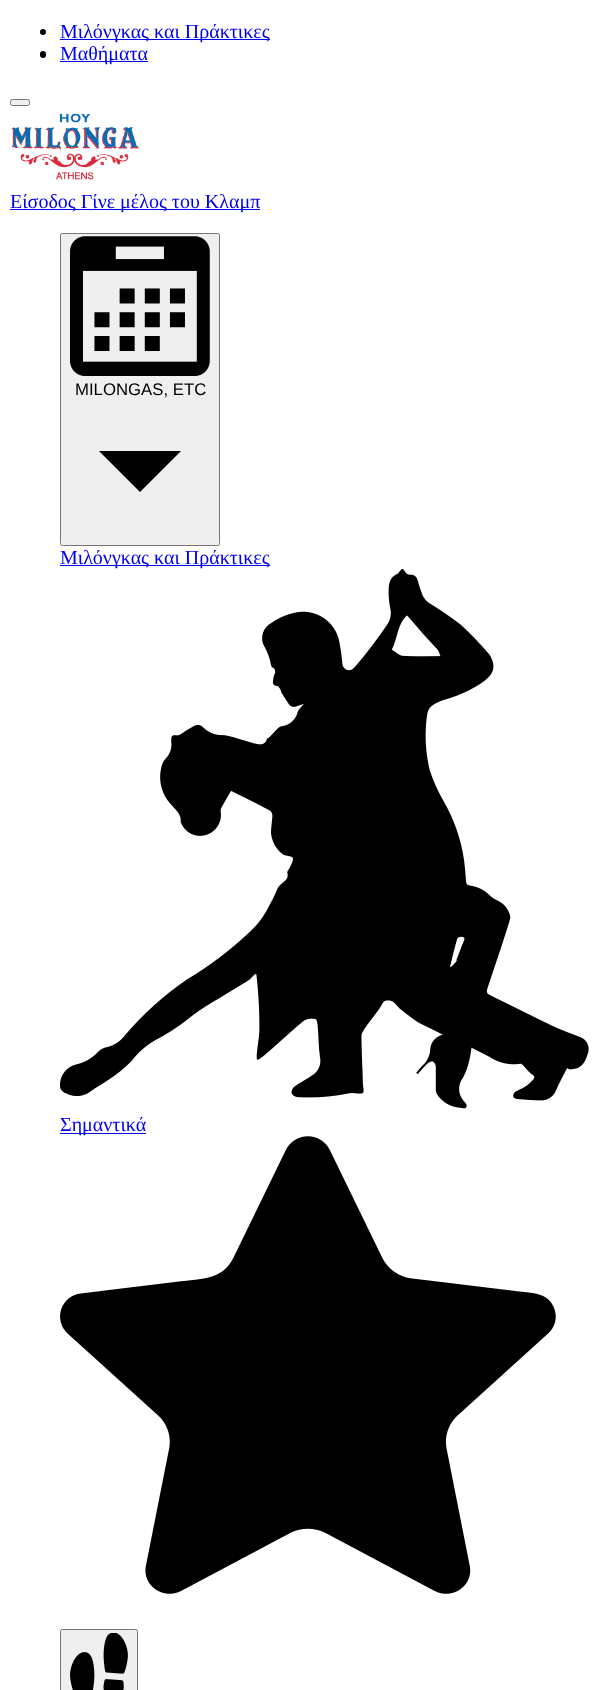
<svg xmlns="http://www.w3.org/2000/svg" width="598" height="1690">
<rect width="100%" height="100%" fill="#fff"/>
<circle cx="43" cy="32" r="3" fill="#000"/>
<rect x="60" y="39" width="210" height="1" fill="#00e"/>
<text x="60" y="38" style="font-family:Liberation Serif;font-size:20px;fill:#00e">Μιλόνγκας και Πράκτικες</text>
<rect x="40" y="51" width="6" height="7" rx="3" fill="#000"/>
<rect x="60" y="61" width="88" height="1" fill="#00e"/>
<text x="60" y="60" style="font-family:Liberation Serif;font-size:20px;fill:#00e">Μαθήματα</text>
<rect x="10.5" y="99.5" width="19" height="6" rx="2" fill="#efefef" stroke="#767676"/>
<image x="11" y="113" width="128" height="67" href="media/1.png"/>
<rect x="10" y="209" width="250" height="1" fill="#00e"/>
<text x="10" y="208" style="font-family:Liberation Serif;font-size:20px;fill:#00e">Είσοδος Γίνε μέλος του Κλαμπ</text>
<rect x="60.5" y="233.5" width="159" height="312" rx="2" fill="#efefef" stroke="#767676"/>
<image x="70" y="236" width="140" height="140" href="media/2.png"/>
<text x="75" y="395" style="font-family:Liberation Sans;font-size:16.75px;fill:#000">MILONGAS, ETC</text>
<path d="M181 451l-41 41l-41-41" fill="#000"/>
<rect x="60" y="565" width="210" height="1" fill="#00e"/>
<text x="60" y="564" style="font-family:Liberation Serif;font-size:20px;fill:#00e">Μιλόνγκας και Πράκτικες</text>
<image x="60" y="569" width="529" height="540" href="media/3.png"/>
<rect x="60" y="1133" width="86" height="1" fill="#00e"/>
<text x="60" y="1131" style="font-family:Liberation Serif;font-size:20px;fill:#00e">Σημαντικά</text>
<image x="60" y="1136" width="496" height="458" href="media/4.png"/>
<rect x="60.5" y="1629.5" width="77" height="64" rx="2" fill="#efefef" stroke="#767676"/>
<image x="70" y="1633" width="58" height="57" href="media/5.png"/>
</svg>
